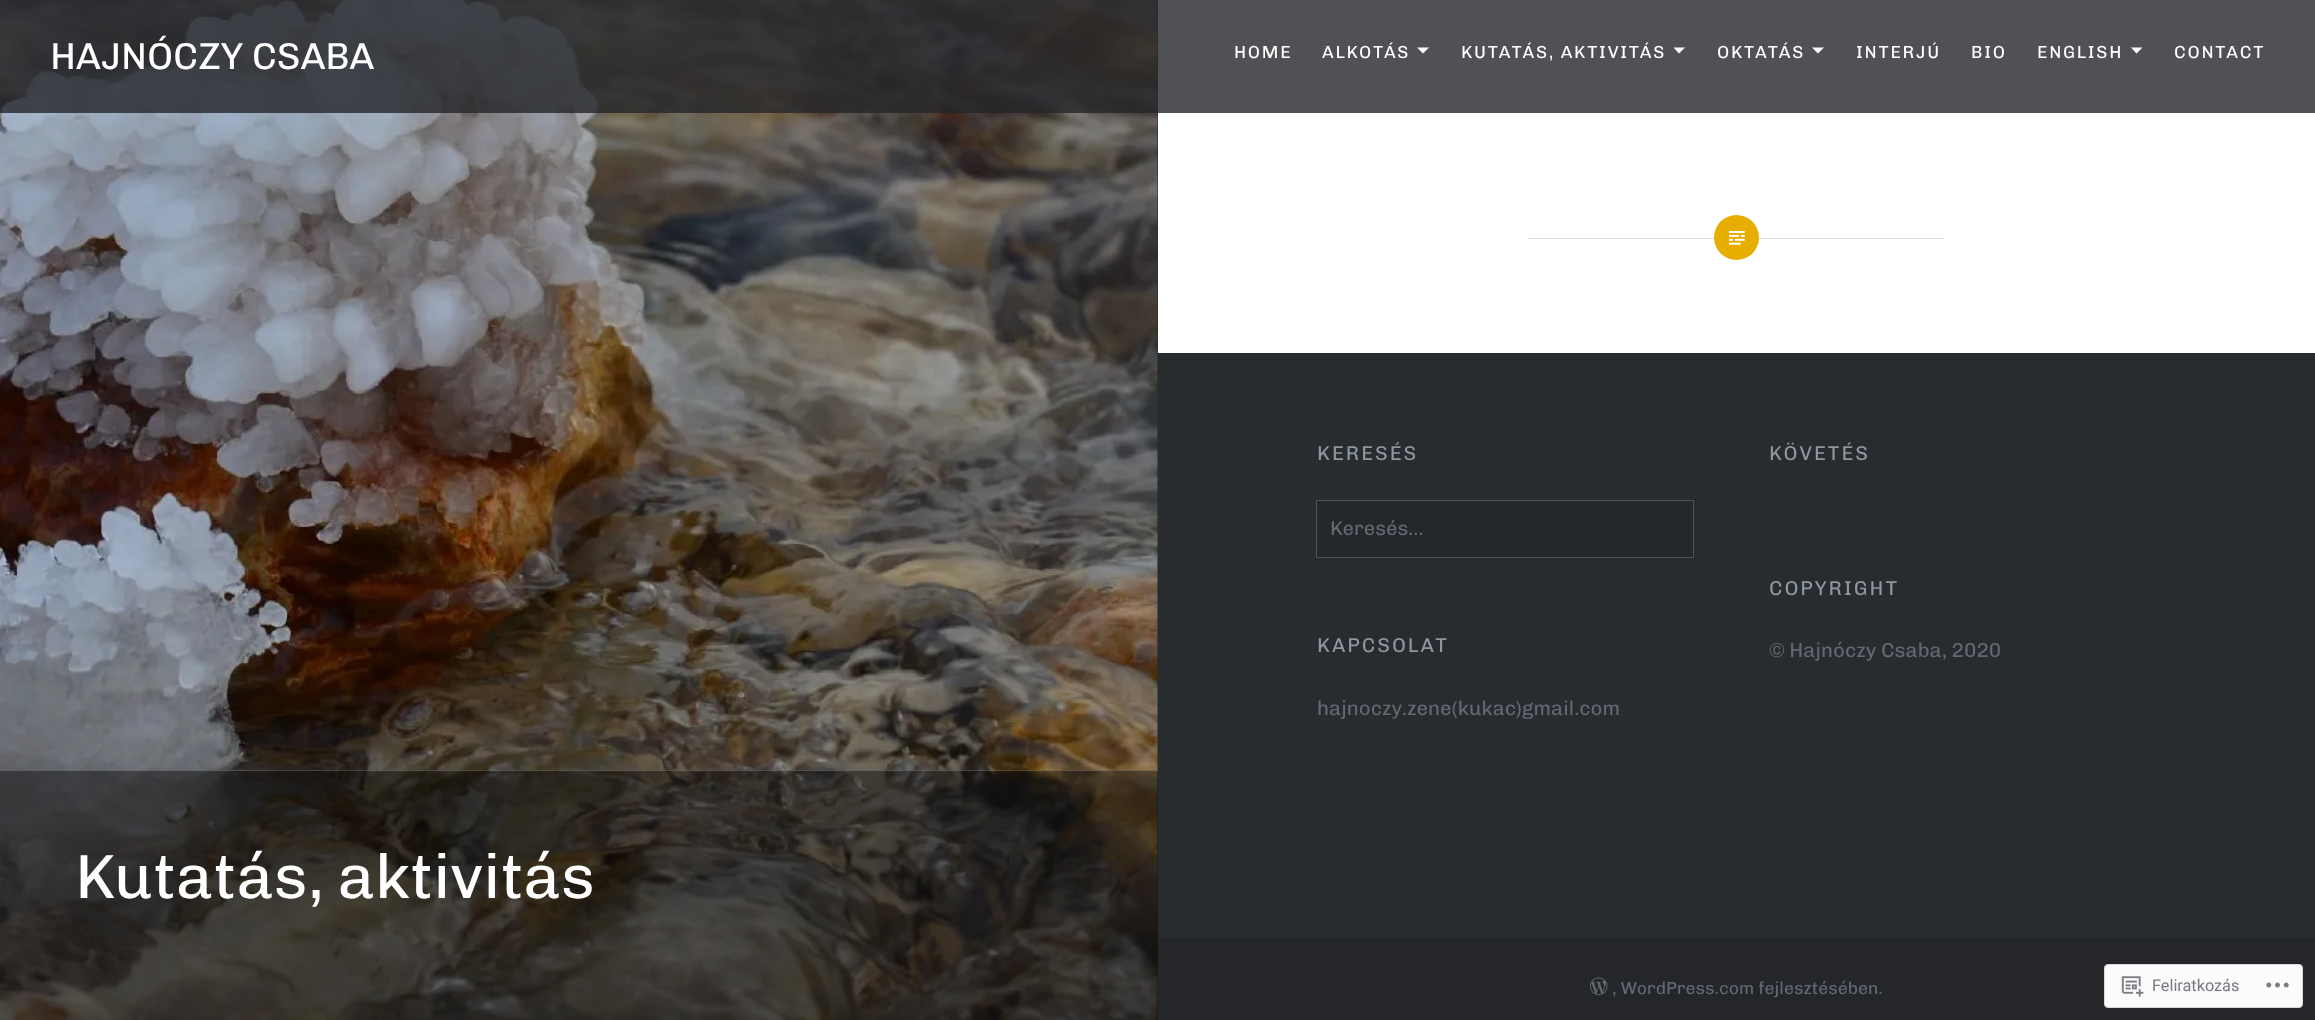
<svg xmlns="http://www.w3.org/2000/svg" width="2315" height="1020">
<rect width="100%" height="100%" fill="#242629"/>
<rect x="1158" width="1157" height="353" fill="#fff"/>
<image x="0" y="0" width="1158" height="1020" href="media/1.png"/>
<rect width="2315" height="113" fill="#242629cc"/>
<text x="50" y="69" style="font-family:Chivo;font-size:37.5px;fill:#fff">HAJNÓCZY CSABA</text>
<text x="1234" y="58" style="font-family:Chivo;font-size:17.5px;letter-spacing:1.75px;fill:#fff">HOME</text>
<text x="1322" y="58" style="font-family:Chivo;font-size:17.5px;letter-spacing:1.75px;fill:#fff">ALKOTÁS</text>
<path d="M1417 47.5h12l-6 6z" fill="#fff"/>
<text x="1461" y="58" style="font-family:Chivo;font-size:17.5px;letter-spacing:1.75px;fill:#fff">KUTATÁS, AKTIVITÁS</text>
<path d="M1673.5 47.5h11.5l-6 6z" fill="#fff"/>
<text x="1717" y="58" style="font-family:Chivo;font-size:17.5px;letter-spacing:1.75px;fill:#fff">OKTATÁS</text>
<path d="M1812 47.5h12l-6 6z" fill="#fff"/>
<text x="1856" y="58" style="font-family:Chivo;font-size:17.5px;letter-spacing:1.75px;fill:#fff">INTERJÚ</text>
<text x="1971" y="58" style="font-family:Chivo;font-size:17.5px;letter-spacing:1.75px;fill:#fff">BIO</text>
<text x="2037" y="58" style="font-family:Chivo;font-size:17.5px;letter-spacing:1.75px;fill:#fff">ENGLISH</text>
<path d="M2131 47.5h11.5l-6 6z" fill="#fff"/>
<text x="2174" y="58" style="font-family:Chivo;font-size:17.5px;letter-spacing:1.75px;fill:#fff">CONTACT</text>
<rect x="1528" y="238" width="417" height="1" fill="#e0e0e0"/>
<circle cx="1736.5" cy="237.5" r="22.5" fill="#e7ae01"/>
<image x="1729" y="231" width="16" height="14" href="media/2.png"/>
<rect y="770" width="1158" height="250" fill="#00000066"/>
<rect y="770" width="1158" height="1" fill="#ffffff33"/>
<text x="75" y="898" style="font-family:Chivo;font-size:62.5px;fill:#fff">Kutatás, aktivitás</text>
<rect x="1158" y="353" width="1157" height="585" fill="#292c2f"/>
<text x="1317" y="460" style="font-family:Chivo;font-size:20px;letter-spacing:2px;fill:#8c97a2">KERESÉS</text>
<rect x="1316.5" y="500.5" width="377" height="57" fill="#25282a" stroke="#4d545b"/>
<text x="1330" y="535" style="font-family:Chivo;font-size:20px;fill:#616a74">Keresés…</text>
<text x="1769" y="460" style="font-family:Chivo;font-size:20px;letter-spacing:2px;fill:#8c97a2">KÖVETÉS</text>
<text x="1769" y="595" style="font-family:Chivo;font-size:20px;letter-spacing:2px;fill:#8c97a2">COPYRIGHT</text>
<text x="1769" y="657" style="font-family:Chivo;font-size:20.25px;fill:#616a74">© Hajnóczy Csaba, 2020</text>
<text x="1317" y="652" style="font-family:Chivo;font-size:20px;letter-spacing:2px;fill:#8c97a2">KAPCSOLAT</text>
<text x="1317" y="715" style="font-family:Chivo;font-size:20.25px;fill:#616a74">hajnoczy.zene(kukac)gmail.com</text>
<image x="1590" y="977" width="18" height="18" href="media/3.png"/>
<text x="1612" y="994" style="font-family:Chivo;font-size:17.5px;fill:#616a74">, WordPress.com fejlesztésében.</text>
<rect x="2104.5" y="964.5" width="198" height="43" rx="3.5" fill="#fbfbfb" stroke="#d8d8da"/>
<image x="2121" y="976" width="23" height="21" href="media/4.png"/>
<text x="2152" y="991" style="font-family:Roboto;font-size:16.25px;fill:#767a80">Feliratkozás</text>
<image x="2266" y="982" width="23" height="6" href="media/5.png"/>
</svg>
